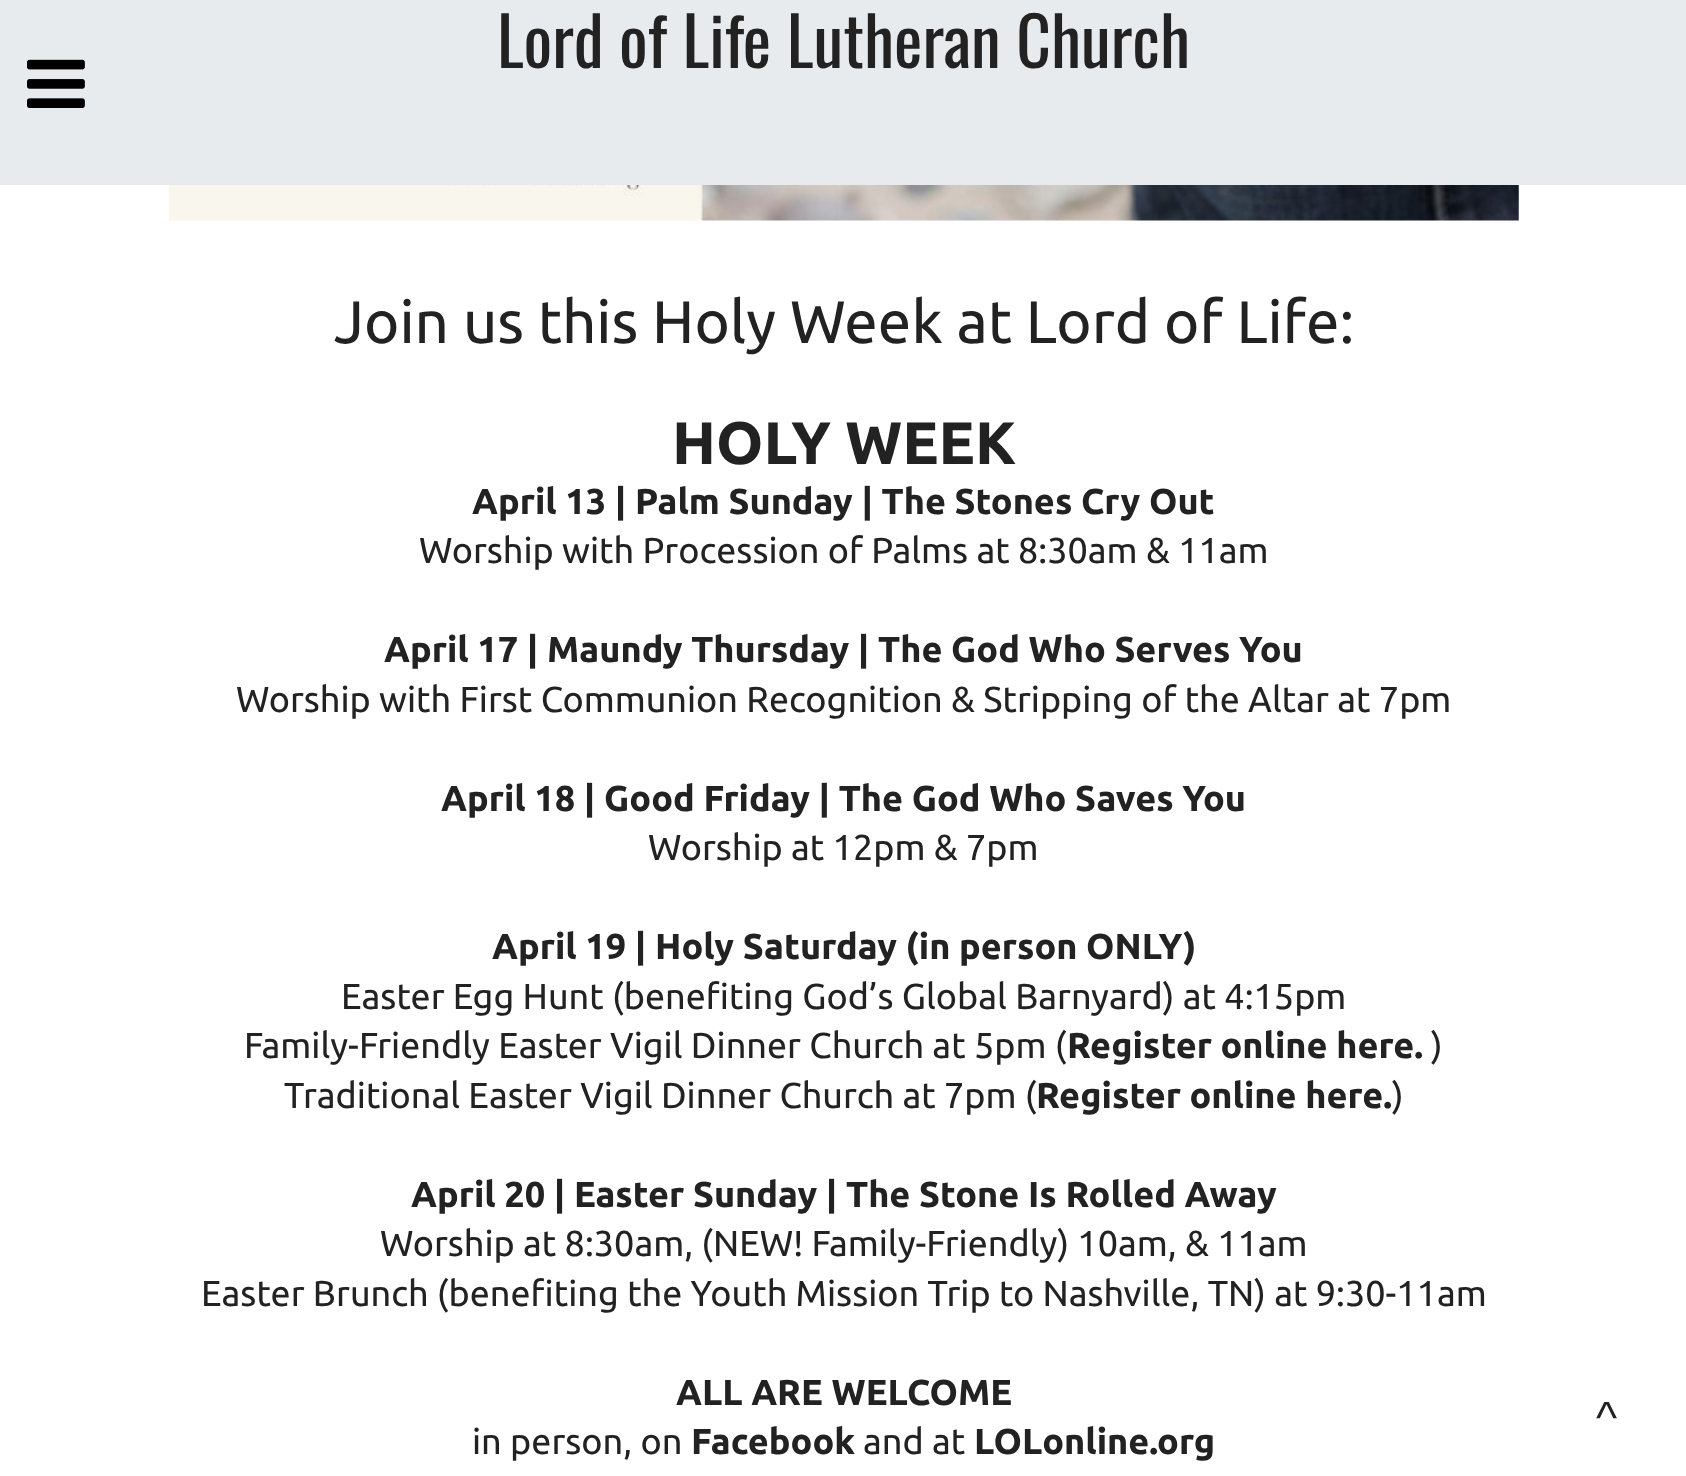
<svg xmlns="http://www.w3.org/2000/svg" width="1686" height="1476">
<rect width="100%" height="100%" fill="#fff"/>
<rect width="1686" height="185" fill="#e8ebed"/>
<text x="497" y="68" style="font-family:Oswald;font-size:67.5px;fill:#222">Lord of Life Lutheran Church</text>
<image x="27" y="59" width="58" height="49" href="media/1.png"/>
<image x="168" y="185" width="1351" height="36" href="media/2.png"/>
<text x="334" y="343" style="font-family:Ubuntu;font-size:60px;fill:#222">Join us this Holy Week at Lord of Life:</text>
<text x="672" y="464" style="font-family:Ubuntu;font-size:60px;font-weight:bold;fill:#222">HOLY WEEK</text>
<text x="472" y="514" style="font-family:Ubuntu;font-size:36px;font-weight:bold;fill:#222">April 13 | Palm Sunday | The Stones Cry Out</text>
<text x="419" y="563" style="font-family:Ubuntu;font-size:36px;fill:#222">Worship with Procession of Palms at 8:30am &amp; 11am</text>
<text x="384" y="662" style="font-family:Ubuntu;font-size:36px;font-weight:bold;fill:#222">April 17 | Maundy Thursday | The God Who Serves You</text>
<text x="236" y="712" style="font-family:Ubuntu;font-size:36px;fill:#222">Worship with First Communion Recognition &amp; Stripping of the Altar at 7pm</text>
<text x="441" y="811" style="font-family:Ubuntu;font-size:36px;font-weight:bold;fill:#222">April 18 | Good Friday | The God Who Saves You</text>
<text x="648" y="860" style="font-family:Ubuntu;font-size:36px;fill:#222">Worship at 12pm &amp; 7pm</text>
<text x="492" y="959" style="font-family:Ubuntu;font-size:36px;font-weight:bold;fill:#222">April 19 | Holy Saturday (in person ONLY)</text>
<text x="341" y="1009" style="font-family:Ubuntu;font-size:36px;fill:#222">Easter Egg Hunt (benefiting God’s Global Barnyard) at 4:15pm</text>
<text x="244" y="1058" style="font-family:Ubuntu;font-size:36px;fill:#222">Family-Friendly Easter Vigil Dinner Church at 5pm (</text>
<text x="1067" y="1058" style="font-family:Ubuntu;font-size:36px;font-weight:bold;fill:#222">Register online here.</text>
<text x="1431" y="1058" style="font-family:Ubuntu;font-size:36px;fill:#222">)</text>
<text x="284" y="1108" style="font-family:Ubuntu;font-size:36px;fill:#222">Traditional Easter Vigil Dinner Church at 7pm (</text>
<text x="1036" y="1108" style="font-family:Ubuntu;font-size:36px;font-weight:bold;fill:#222">Register online here.</text>
<text x="1392" y="1108" style="font-family:Ubuntu;font-size:36px;fill:#222">)</text>
<text x="411" y="1207" style="font-family:Ubuntu;font-size:36px;font-weight:bold;fill:#222">April 20 | Easter Sunday | The Stone Is Rolled Away</text>
<text x="380" y="1256" style="font-family:Ubuntu;font-size:36px;fill:#222">Worship at 8:30am, (NEW! Family-Friendly) 10am, &amp; 11am</text>
<text x="201" y="1306" style="font-family:Ubuntu;font-size:36px;fill:#222">Easter Brunch (benefiting the Youth Mission Trip to Nashville, TN) at 9:30-11am</text>
<text x="676" y="1405" style="font-family:Ubuntu;font-size:36px;font-weight:bold;fill:#222">ALL ARE WELCOME</text>
<text x="472" y="1454" style="font-family:Ubuntu;font-size:36px;fill:#222">in person, on</text>
<text x="691" y="1454" style="font-family:Ubuntu;font-size:36px;font-weight:bold;fill:#222">Facebook</text>
<text x="863" y="1454" style="font-family:Ubuntu;font-size:36px;fill:#222">and at</text>
<text x="974" y="1454" style="font-family:Ubuntu;font-size:36px;font-weight:bold;fill:#222">LOLonline.org</text>
<text x="1596" y="1433" style="font-family:Arimo;font-size:45px;fill:#222">^</text>
</svg>
